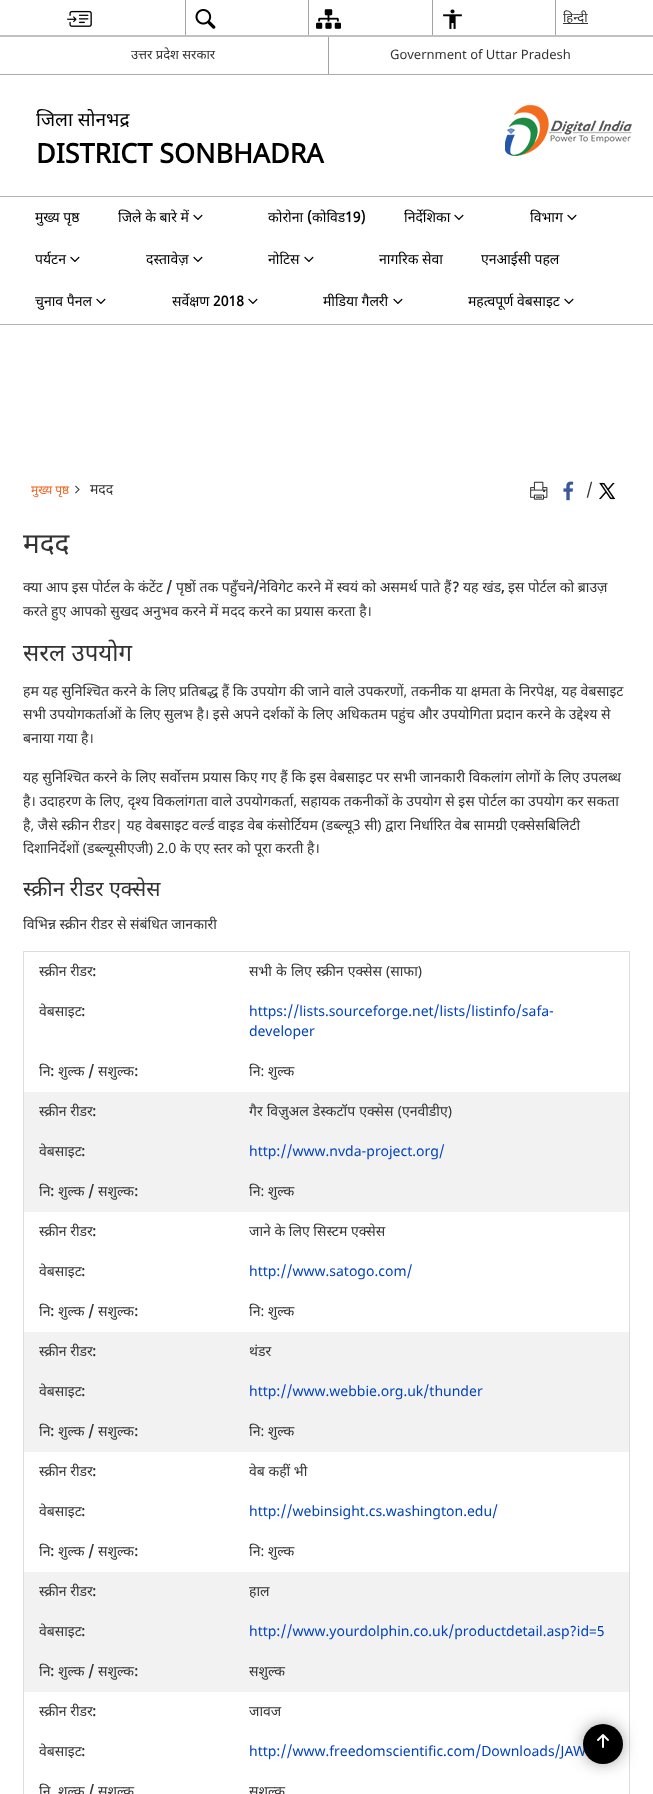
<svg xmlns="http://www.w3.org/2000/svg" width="653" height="1794">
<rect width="100%" height="100%" fill="#fff"/>
<rect y="74" width="653" height="1" fill="#ababab"/>
<image x="67" y="10" width="25" height="17" href="media/1.png"/>
<rect x="185" width="1" height="37" fill="#a3a3a3"/>
<image x="195" y="9" width="21" height="20" href="media/2.png"/>
<rect x="308" width="1" height="37" fill="#a3a3a3"/>
<image x="316" y="9" width="25" height="20" href="media/3.png"/>
<rect x="432" width="1" height="37" fill="#a3a3a3"/>
<image x="443" y="9" width="19" height="20" href="media/4.png"/>
<rect x="555" width="1" height="37" fill="#a3a3a3"/>
<rect x="563" y="23" width="25" height="1" fill="#333"/>
<text x="563" y="22" style="font-family:Noto Sans;font-size:13px;fill:#333">हिन्दी</text>
<text x="131" y="59" style="font-family:Noto Sans;font-size:13px;fill:#333">उत्तर प्रदेश सरकार</text>
<rect x="328" y="37" width="1" height="37" fill="#a3a3a3"/>
<text x="390" y="59" style="font-family:'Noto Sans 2';font-size:13px;fill:#333">Government of Uttar Pradesh</text>
<rect y="35" width="653" height="2" fill="#c2c0c1"/>
<text x="36" y="126" style="font-family:Noto Sans;font-size:19px;fill:#000">जिला सोनभद्र</text>
<text x="36" y="163" style="font-family:Noto Sans;font-size:26.9px;font-weight:bold;fill:#000">DISTRICT SONBHADRA</text>
<image x="505" y="105" width="127" height="51" href="media/5.png"/>
<rect y="196" width="653" height="1" fill="#b3b3b3"/>
<rect y="324" width="653" height="1" fill="#b3b3b3"/>
<text x="35" y="222" style="font-family:Noto Sans;font-size:14px;fill:#000">मुख्य पृष्ठ</text>
<text x="118" y="222" style="font-family:Noto Sans;font-size:14px;fill:#000">जिले के बारे में</text>
<image x="193" y="214" width="10" height="7" href="media/6.png"/>
<text x="268" y="222" style="font-family:Noto Sans;font-size:14px;fill:#000">कोरोना</text>
<text x="307" y="222" style="font-family:Noto Sans;font-size:14px;font-weight:bold;fill:#000">(</text>
<text x="312" y="222" style="font-family:Noto Sans;font-size:14px;fill:#000">कोविड</text>
<text x="345" y="222" style="font-family:Noto Sans;font-size:14px;font-weight:bold;fill:#000">19)</text>
<text x="404" y="222" style="font-family:Noto Sans;font-size:14px;fill:#000">निर्देशिका</text>
<image x="454" y="214" width="10" height="7" href="media/6.png"/>
<text x="530" y="222" style="font-family:Noto Sans;font-size:14px;fill:#000">विभाग</text>
<image x="567" y="214" width="10" height="7" href="media/6.png"/>
<text x="35" y="264" style="font-family:Noto Sans;font-size:14px;fill:#000">पर्यटन</text>
<image x="70" y="256" width="10" height="7" href="media/6.png"/>
<text x="146" y="264" style="font-family:Noto Sans;font-size:14px;fill:#000">दस्तावेज़</text>
<image x="193" y="256" width="10" height="7" href="media/6.png"/>
<text x="268" y="264" style="font-family:Noto Sans;font-size:14px;fill:#000">नोटिस</text>
<image x="304" y="256" width="10" height="7" href="media/6.png"/>
<text x="379" y="264" style="font-family:Noto Sans;font-size:14px;fill:#000">नागरिक सेवा</text>
<text x="481" y="264" style="font-family:Noto Sans;font-size:14px;fill:#000">एनआईसी पहल</text>
<text x="35" y="306" style="font-family:Noto Sans;font-size:14px;fill:#000">चुनाव पैनल</text>
<image x="96" y="298" width="10" height="7" href="media/6.png"/>
<text x="172" y="306" style="font-family:Noto Sans;font-size:14px;fill:#000">सर्वेक्षण</text>
<text x="213" y="306" style="font-family:Noto Sans;font-size:14px;font-weight:bold;fill:#000">2018</text>
<image x="248" y="298" width="10" height="7" href="media/6.png"/>
<text x="323" y="306" style="font-family:Noto Sans;font-size:14px;fill:#000">मीडिया गैलरी</text>
<image x="393" y="298" width="10" height="7" href="media/6.png"/>
<text x="468" y="306" style="font-family:Noto Sans;font-size:14px;fill:#000">महत्वपूर्ण वेबसाइट</text>
<image x="564" y="298" width="10" height="7" href="media/6.png"/>
<text x="31" y="494" style="font-family:Noto Sans;font-size:12px;fill:#f26522">मुख्य पृष्ठ</text>
<image x="75" y="485" width="5" height="9" href="media/7.png"/>
<text x="90" y="494" style="font-family:Noto Sans;font-size:14px;fill:#333">मदद</text>
<image x="530" y="481" width="18" height="19" href="media/8.png"/>
<image x="563" y="481" width="11" height="20" href="media/9.png"/>
<text x="586" y="495" style="font-family:'Noto Sans 2';font-size:16px;fill:#333">/</text>
<image x="599" y="482" width="17" height="18" href="media/10.png"/>
<text x="23" y="553" style="font-family:Noto Sans;font-size:28px;fill:#333">मदद</text>
<text x="23" y="592" style="font-family:Noto Sans;font-size:14px;fill:#333">क्या आप इस पोर्टल के कंटेंट</text>
<text x="166" y="592" style="font-family:Noto Sans;font-size:14px;font-weight:bold;fill:#333">/</text>
<text x="176" y="592" style="font-family:Noto Sans;font-size:14px;fill:#333">पृष्ठों तक पहुँचने</text>
<text x="253" y="592" style="font-family:Noto Sans;font-size:14px;font-weight:bold;fill:#333">/</text>
<text x="259" y="592" style="font-family:Noto Sans;font-size:14px;fill:#333">नेविगेट करने में स्वयं को असमर्थ पाते हैं</text>
<text x="508" y="592" style="font-family:Noto Sans;font-size:14px;fill:#333">इस पोर्टल को ब्राउज़</text>
<text x="452" y="592" style="font-family:Noto Sans;font-size:14px;font-weight:bold;fill:#333">?</text>
<text x="463" y="592" style="font-family:Noto Sans;font-size:14px;fill:#333">यह खंड</text>
<text x="501" y="592" style="font-family:Noto Sans;font-size:14px;font-weight:bold;fill:#333">,</text>
<text x="23" y="616" style="font-family:Noto Sans;font-size:14px;fill:#333">करते हुए आपको सुखद अनुभव करने में मदद करने का प्रयास करता है।</text>
<text x="23" y="661" style="font-family:Noto Sans;font-size:24px;fill:#333">सरल उपयोग</text>
<text x="23" y="696" style="font-family:Noto Sans;font-size:14px;fill:#333">हम यह सुनिश्चित करने के लिए प्रतिबद्ध हैं कि उपयोग की जाने वाले उपकरणों, तकनीक या क्षमता के निरपेक्ष, यह वेबसाइट</text>
<text x="23" y="719" style="font-family:Noto Sans;font-size:14px;fill:#333">सभी उपयोगकर्ताओं के लिए सुलभ है। इसे अपने दर्शकों के लिए अधिकतम पहुंच और उपयोगिता प्रदान करने के उद्देश्य से</text>
<text x="23" y="743" style="font-family:Noto Sans;font-size:14px;fill:#333">बनाया गया है।</text>
<text x="23" y="782" style="font-family:Noto Sans;font-size:14px;fill:#333">यह सुनिश्चित करने के लिए सर्वोत्तम प्रयास किए गए हैं कि इस वेबसाइट पर सभी जानकारी विकलांग लोगों के लिए उपलब्ध</text>
<text x="23" y="806" style="font-family:Noto Sans;font-size:14px;fill:#333">है। उदाहरण के लिए, दृश्य विकलांगता वाले उपयोगकर्ता, सहायक तकनीकों के उपयोग से इस पोर्टल का उपयोग कर सकता</text>
<text x="23" y="830" style="font-family:Noto Sans;font-size:14px;fill:#333">है, जैसे स्क्रीन रीडर| यह वेबसाइट वर्ल्ड वाइड वेब कंसोर्टियम (डब्ल्यू3 सी) द्वारा निर्धारित वेब सामग्री एक्सेसबिलिटी</text>
<text x="23" y="853" style="font-family:Noto Sans;font-size:14px;fill:#333">दिशानिर्देशों (डब्ल्यूसीएजी) 2.0 के एए स्तर को पूरा करती है।</text>
<text x="23" y="896" style="font-family:Noto Sans;font-size:21px;fill:#333">स्क्रीन रीडर एक्सेस</text>
<text x="23" y="929" style="font-family:Noto Sans;font-size:14px;fill:#333">विभिन्न स्क्रीन रीडर से संबंधित जानकारी</text>
<rect x="23" y="951" width="607" height="1" fill="#ddd"/>
<rect x="629" y="951" width="1" height="843" fill="#ddd"/>
<rect x="23" y="951" width="1" height="843" fill="#ddd"/>
<text x="39" y="976" style="font-family:Noto Sans;font-size:14px;fill:#333">स्क्रीन रीडर</text>
<text x="92" y="976" style="font-family:Noto Sans;font-size:14px;font-weight:bold;fill:#333">:</text>
<text x="249" y="976" word-spacing="0.5" style="font-family:Noto Sans;font-size:14px;fill:#333">सभी के लिए स्क्रीन एक्सेस (साफा)</text>
<text x="39" y="1016" style="font-family:Noto Sans;font-size:14px;fill:#333">वेबसाइट</text>
<text x="81" y="1016" style="font-family:Noto Sans;font-size:14px;font-weight:bold;fill:#333">:</text>
<text x="249" y="1016" style="font-family:'Noto Sans 2';font-size:14px;fill:#0042bf">https://lists.sourceforge.net/lists/listinfo/safa-</text>
<text x="249" y="1036" style="font-family:'Noto Sans 2';font-size:14px;fill:#0042bf">developer</text>
<text x="39" y="1076" style="font-family:Noto Sans;font-size:14px;fill:#333">नि</text>
<text x="50" y="1076" style="font-family:Noto Sans;font-size:14px;font-weight:bold;fill:#333">:</text>
<text x="58" y="1076" style="font-family:Noto Sans;font-size:14px;fill:#333">शुल्क</text>
<text x="88" y="1076" style="font-family:Noto Sans;font-size:14px;font-weight:bold;fill:#333">/</text>
<text x="98" y="1076" style="font-family:Noto Sans;font-size:14px;fill:#333">सशुल्क</text>
<text x="134" y="1076" style="font-family:Noto Sans;font-size:14px;font-weight:bold;fill:#333">:</text>
<text x="249" y="1076" style="font-family:Noto Sans;font-size:14px;fill:#333">नि: शुल्क</text>
<rect x="24" y="1092" width="605" height="120" fill="#f2f2f2"/>
<text x="39" y="1116" style="font-family:Noto Sans;font-size:14px;fill:#333">स्क्रीन रीडर</text>
<text x="92" y="1116" style="font-family:Noto Sans;font-size:14px;font-weight:bold;fill:#333">:</text>
<text x="249" y="1116" word-spacing="0.5" style="font-family:Noto Sans;font-size:14px;fill:#333">गैर विज़ुअल डेस्कटॉप एक्सेस (एनवीडीए)</text>
<text x="39" y="1156" style="font-family:Noto Sans;font-size:14px;fill:#333">वेबसाइट</text>
<text x="81" y="1156" style="font-family:Noto Sans;font-size:14px;font-weight:bold;fill:#333">:</text>
<text x="249" y="1156" style="font-family:'Noto Sans 2';font-size:14px;fill:#0042bf">http://www.nvda-project.org/</text>
<text x="39" y="1196" style="font-family:Noto Sans;font-size:14px;fill:#333">नि</text>
<text x="50" y="1196" style="font-family:Noto Sans;font-size:14px;font-weight:bold;fill:#333">:</text>
<text x="58" y="1196" style="font-family:Noto Sans;font-size:14px;fill:#333">शुल्क</text>
<text x="88" y="1196" style="font-family:Noto Sans;font-size:14px;font-weight:bold;fill:#333">/</text>
<text x="98" y="1196" style="font-family:Noto Sans;font-size:14px;fill:#333">सशुल्क</text>
<text x="134" y="1196" style="font-family:Noto Sans;font-size:14px;font-weight:bold;fill:#333">:</text>
<text x="249" y="1196" style="font-family:Noto Sans;font-size:14px;fill:#333">नि: शुल्क</text>
<text x="39" y="1236" style="font-family:Noto Sans;font-size:14px;fill:#333">स्क्रीन रीडर</text>
<text x="92" y="1236" style="font-family:Noto Sans;font-size:14px;font-weight:bold;fill:#333">:</text>
<text x="249" y="1236" style="font-family:Noto Sans;font-size:14px;fill:#333">जाने के लिए सिस्टम एक्सेस</text>
<text x="39" y="1276" style="font-family:Noto Sans;font-size:14px;fill:#333">वेबसाइट</text>
<text x="81" y="1276" style="font-family:Noto Sans;font-size:14px;font-weight:bold;fill:#333">:</text>
<text x="249" y="1276" style="font-family:'Noto Sans 2';font-size:14px;fill:#0042bf">http://www.satogo.com/</text>
<text x="39" y="1316" style="font-family:Noto Sans;font-size:14px;fill:#333">नि</text>
<text x="50" y="1316" style="font-family:Noto Sans;font-size:14px;font-weight:bold;fill:#333">:</text>
<text x="58" y="1316" style="font-family:Noto Sans;font-size:14px;fill:#333">शुल्क</text>
<text x="88" y="1316" style="font-family:Noto Sans;font-size:14px;font-weight:bold;fill:#333">/</text>
<text x="98" y="1316" style="font-family:Noto Sans;font-size:14px;fill:#333">सशुल्क</text>
<text x="134" y="1316" style="font-family:Noto Sans;font-size:14px;font-weight:bold;fill:#333">:</text>
<text x="249" y="1316" style="font-family:Noto Sans;font-size:14px;fill:#333">नि: शुल्क</text>
<rect x="24" y="1332" width="605" height="120" fill="#f2f2f2"/>
<text x="39" y="1356" style="font-family:Noto Sans;font-size:14px;fill:#333">स्क्रीन रीडर</text>
<text x="92" y="1356" style="font-family:Noto Sans;font-size:14px;font-weight:bold;fill:#333">:</text>
<text x="249" y="1356" style="font-family:Noto Sans;font-size:14px;fill:#333">थंडर</text>
<text x="39" y="1396" style="font-family:Noto Sans;font-size:14px;fill:#333">वेबसाइट</text>
<text x="81" y="1396" style="font-family:Noto Sans;font-size:14px;font-weight:bold;fill:#333">:</text>
<text x="249" y="1396" style="font-family:'Noto Sans 2';font-size:14px;fill:#0042bf">http://www.webbie.org.uk/thunder</text>
<text x="39" y="1436" style="font-family:Noto Sans;font-size:14px;fill:#333">नि</text>
<text x="50" y="1436" style="font-family:Noto Sans;font-size:14px;font-weight:bold;fill:#333">:</text>
<text x="58" y="1436" style="font-family:Noto Sans;font-size:14px;fill:#333">शुल्क</text>
<text x="88" y="1436" style="font-family:Noto Sans;font-size:14px;font-weight:bold;fill:#333">/</text>
<text x="98" y="1436" style="font-family:Noto Sans;font-size:14px;fill:#333">सशुल्क</text>
<text x="134" y="1436" style="font-family:Noto Sans;font-size:14px;font-weight:bold;fill:#333">:</text>
<text x="249" y="1436" style="font-family:Noto Sans;font-size:14px;fill:#333">नि: शुल्क</text>
<text x="39" y="1476" style="font-family:Noto Sans;font-size:14px;fill:#333">स्क्रीन रीडर</text>
<text x="92" y="1476" style="font-family:Noto Sans;font-size:14px;font-weight:bold;fill:#333">:</text>
<text x="249" y="1476" style="font-family:Noto Sans;font-size:14px;fill:#333">वेब कहीं भी</text>
<text x="39" y="1516" style="font-family:Noto Sans;font-size:14px;fill:#333">वेबसाइट</text>
<text x="81" y="1516" style="font-family:Noto Sans;font-size:14px;font-weight:bold;fill:#333">:</text>
<text x="249" y="1516" style="font-family:'Noto Sans 2';font-size:14px;fill:#0042bf">http://webinsight.cs.washington.edu/</text>
<text x="39" y="1556" style="font-family:Noto Sans;font-size:14px;fill:#333">नि</text>
<text x="50" y="1556" style="font-family:Noto Sans;font-size:14px;font-weight:bold;fill:#333">:</text>
<text x="58" y="1556" style="font-family:Noto Sans;font-size:14px;fill:#333">शुल्क</text>
<text x="88" y="1556" style="font-family:Noto Sans;font-size:14px;font-weight:bold;fill:#333">/</text>
<text x="98" y="1556" style="font-family:Noto Sans;font-size:14px;fill:#333">सशुल्क</text>
<text x="134" y="1556" style="font-family:Noto Sans;font-size:14px;font-weight:bold;fill:#333">:</text>
<text x="249" y="1556" style="font-family:Noto Sans;font-size:14px;fill:#333">नि: शुल्क</text>
<rect x="24" y="1572" width="605" height="120" fill="#f2f2f2"/>
<text x="39" y="1596" style="font-family:Noto Sans;font-size:14px;fill:#333">स्क्रीन रीडर</text>
<text x="92" y="1596" style="font-family:Noto Sans;font-size:14px;font-weight:bold;fill:#333">:</text>
<text x="249" y="1596" style="font-family:Noto Sans;font-size:14px;fill:#333">हाल</text>
<text x="39" y="1636" style="font-family:Noto Sans;font-size:14px;fill:#333">वेबसाइट</text>
<text x="81" y="1636" style="font-family:Noto Sans;font-size:14px;font-weight:bold;fill:#333">:</text>
<text x="249" y="1636" style="font-family:'Noto Sans 2';font-size:14px;fill:#0042bf">http://www.yourdolphin.co.uk/productdetail.asp?id=5</text>
<text x="39" y="1676" style="font-family:Noto Sans;font-size:14px;fill:#333">नि</text>
<text x="50" y="1676" style="font-family:Noto Sans;font-size:14px;font-weight:bold;fill:#333">:</text>
<text x="58" y="1676" style="font-family:Noto Sans;font-size:14px;fill:#333">शुल्क</text>
<text x="88" y="1676" style="font-family:Noto Sans;font-size:14px;font-weight:bold;fill:#333">/</text>
<text x="98" y="1676" style="font-family:Noto Sans;font-size:14px;fill:#333">सशुल्क</text>
<text x="134" y="1676" style="font-family:Noto Sans;font-size:14px;font-weight:bold;fill:#333">:</text>
<text x="249" y="1676" style="font-family:Noto Sans;font-size:14px;fill:#333">सशुल्क</text>
<text x="39" y="1716" style="font-family:Noto Sans;font-size:14px;fill:#333">स्क्रीन रीडर</text>
<text x="92" y="1716" style="font-family:Noto Sans;font-size:14px;font-weight:bold;fill:#333">:</text>
<text x="249" y="1716" style="font-family:Noto Sans;font-size:14px;fill:#333">जावज</text>
<text x="39" y="1756" style="font-family:Noto Sans;font-size:14px;fill:#333">वेबसाइट</text>
<text x="81" y="1756" style="font-family:Noto Sans;font-size:14px;font-weight:bold;fill:#333">:</text>
<text x="249" y="1756" style="font-family:'Noto Sans 2';font-size:14px;fill:#0042bf">http://www.freedomscientific.com/Downloads/JAW</text>
<text x="39" y="1796" style="font-family:Noto Sans;font-size:14px;fill:#333">नि</text>
<text x="58" y="1796" style="font-family:Noto Sans;font-size:14px;fill:#333">शुल्क</text>
<text x="88" y="1796" style="font-family:Noto Sans;font-size:14px;font-weight:bold;fill:#333">/</text>
<text x="98" y="1796" style="font-family:Noto Sans;font-size:14px;fill:#333">सशुल्क</text>
<text x="249" y="1796" style="font-family:Noto Sans;font-size:14px;fill:#333">सशुल्क</text>
<rect x="588" y="1729" width="30" height="30" rx="15" fill="#3c3c3c" filter="blur(9.5px)"/>
<circle cx="603" cy="1744" r="20" fill="#000"/>
<image x="597" y="1734" width="12" height="14" href="media/11.png"/>
</svg>
